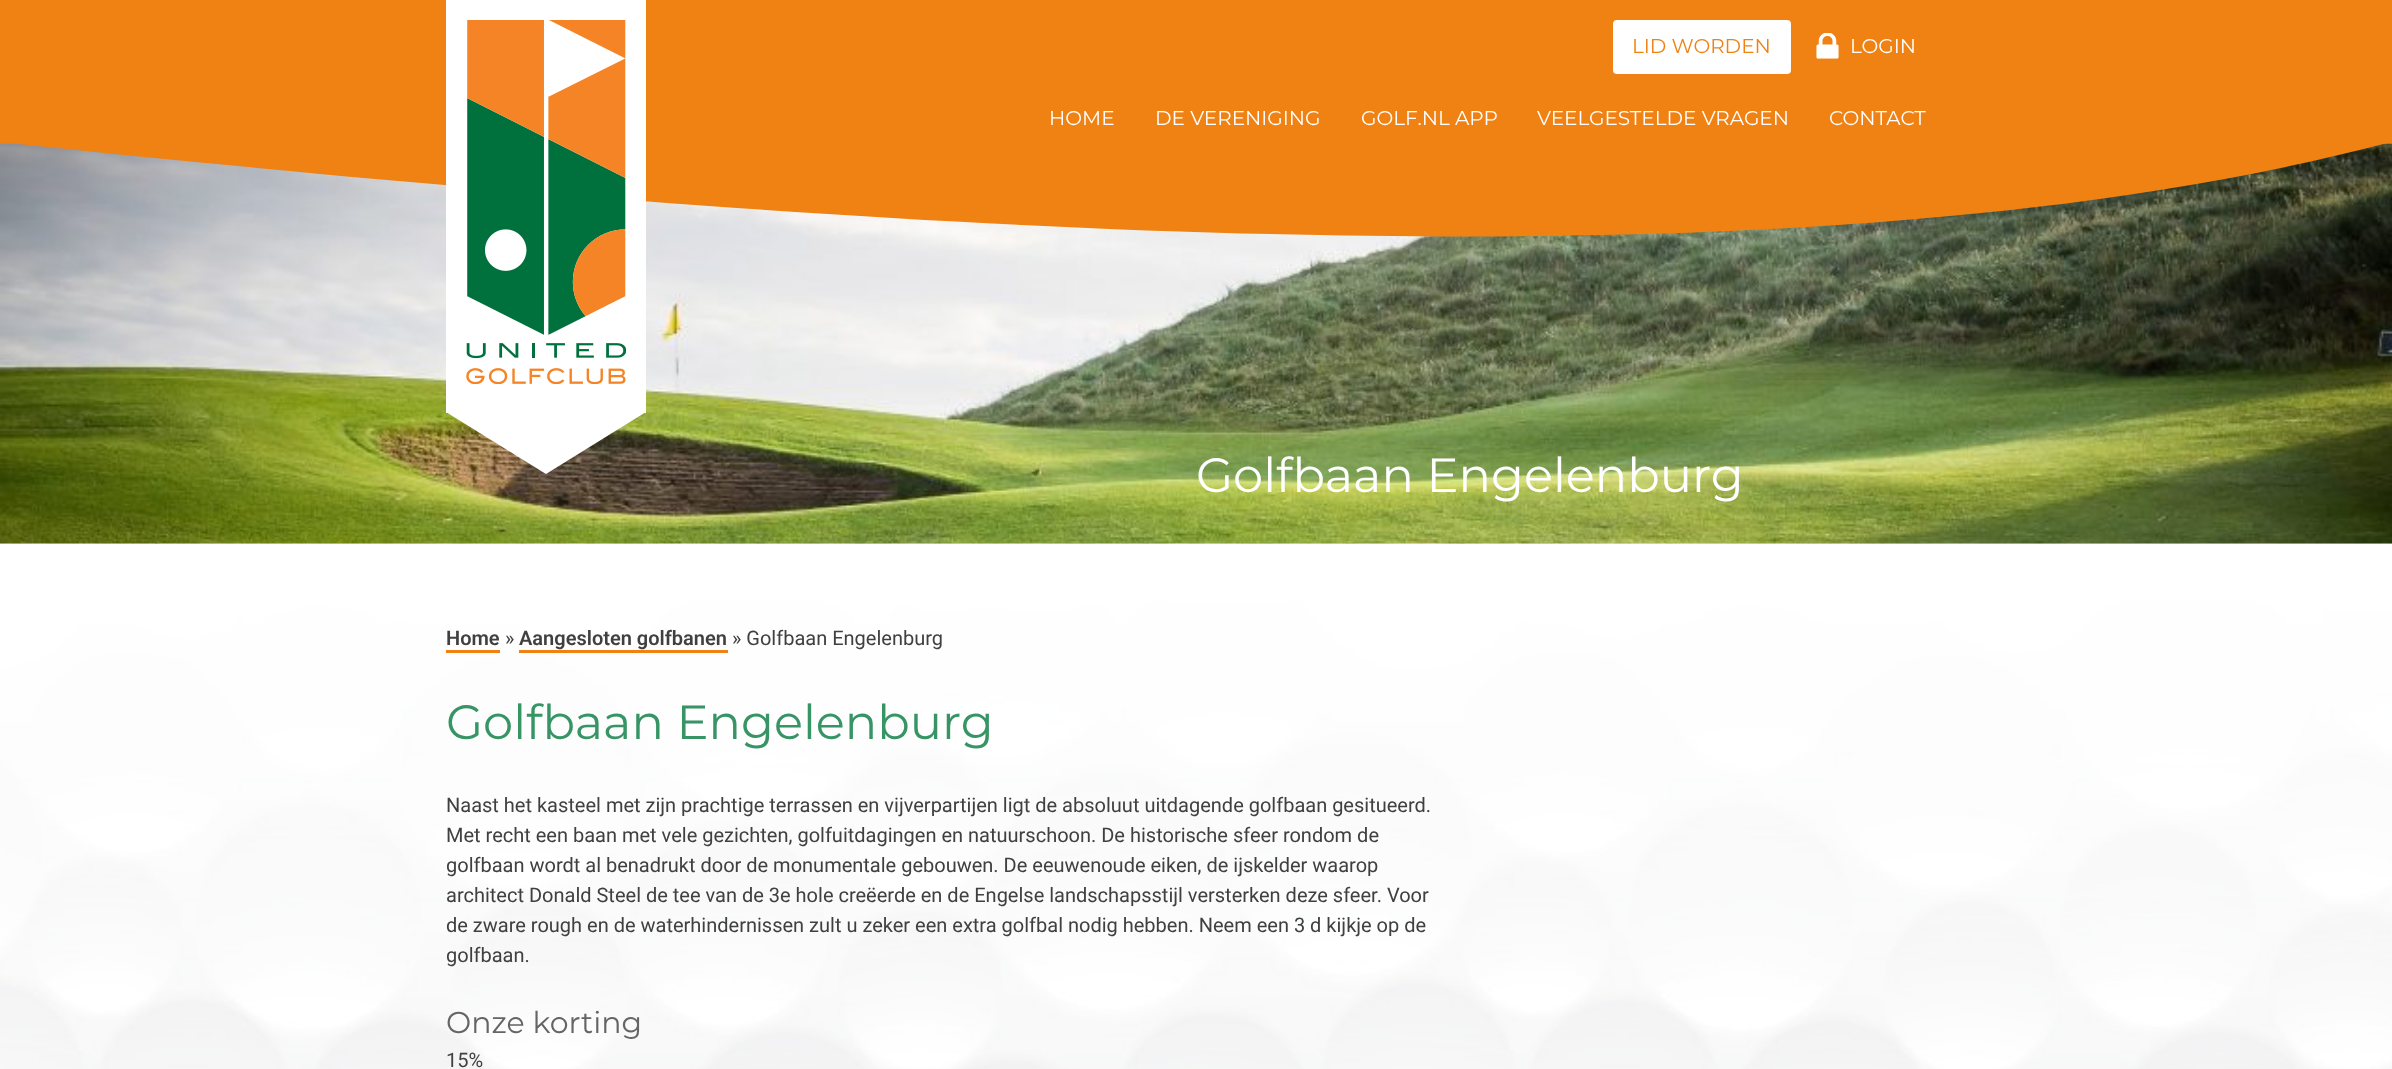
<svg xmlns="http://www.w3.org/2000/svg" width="2392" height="1069">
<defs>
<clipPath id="clip1"><rect y="143" width="2391" height="125"/></clipPath>
<clipPath id="clip2"><rect x="446" y="413" width="200" height="62"/></clipPath>
</defs>
<rect width="100%" height="100%" fill="#fff"/>
<rect width="2392" height="144" fill="#ef8213"/>
<image x="0" y="143" width="2392" height="401" href="media/3.png"/>
<g clip-path="url(#clip1)">
<path d="M-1 142c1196 126 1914 126 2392 0z" fill="#ef8213"/>
</g>
<rect x="446" width="200" height="413" fill="#fff"/>
<image x="466" y="20" width="160" height="364" href="media/1.png"/>
<g clip-path="url(#clip2)">
<path d="M446 412l100 62l100-62z" fill="#fff"/>
</g>
<rect x="1613" y="20" width="178" height="54" rx="4" fill="#fff"/>
<text x="1632" y="53" style="font-family:Montserrat;font-size:20px;font-weight:100;fill:#ef8213">LID WORDEN</text>
<image x="1816" y="33" width="23" height="26" href="media/2.png"/>
<text x="1850" y="53" style="font-family:Montserrat;font-size:20px;font-weight:100;fill:#fff">LOGIN</text>
<text x="1049" y="125" style="font-family:Montserrat;font-size:20px;font-weight:100;fill:#fff">HOME</text>
<text x="1155" y="125" style="font-family:Montserrat;font-size:20px;font-weight:100;fill:#fff">DE VERENIGING</text>
<text x="1361" y="125" style="font-family:Montserrat;font-size:20px;font-weight:100;fill:#fff">GOLF.NL APP</text>
<text x="1537" y="125" style="font-family:Montserrat;font-size:20px;font-weight:100;fill:#fff">VEELGESTELDE VRAGEN</text>
<text x="1829" y="125" style="font-family:Montserrat;font-size:20px;font-weight:100;fill:#fff">CONTACT</text>
<text x="1196" y="492" style="font-family:Montserrat;font-size:48px;font-weight:100;fill:#fff">Golfbaan Engelenburg</text>
<image x="0" y="543" width="2392" height="526" href="media/4.png"/>
<text x="446" y="645" style="font-family:Roboto;font-size:20px;font-weight:600;fill:#404040">Home</text>
<rect x="446" y="650" width="54" height="3" fill="#ef8213"/>
<text x="505" y="645" style="font-family:Roboto;font-size:20px;fill:#404040">»</text>
<text x="519" y="645" style="font-family:Roboto;font-size:20px;font-weight:600;fill:#404040">Aangesloten golfbanen</text>
<rect x="519" y="650" width="209" height="3" fill="#ef8213"/>
<text x="732" y="645" style="font-family:Roboto;font-size:20px;fill:#404040">» Golfbaan Engelenburg</text>
<text x="446" y="739" style="font-family:Montserrat;font-size:48px;font-weight:100;fill:#369465">Golfbaan Engelenburg</text>
<text x="446" y="812" style="font-family:Roboto;font-size:20px;fill:#404040">Naast het kasteel met zijn prachtige terrassen en vijverpartijen ligt de absoluut uitdagende golfbaan gesitueerd.</text>
<text x="446" y="842" style="font-family:Roboto;font-size:20px;fill:#404040">Met recht een baan met vele gezichten, golfuitdagingen en natuurschoon. De historische sfeer rondom de</text>
<text x="446" y="872" style="font-family:Roboto;font-size:20px;fill:#404040">golfbaan wordt al benadrukt door de monumentale gebouwen. De eeuwenoude eiken, de ijskelder waarop</text>
<text x="446" y="902" style="font-family:Roboto;font-size:20px;fill:#404040">architect Donald Steel de tee van de 3e hole creëerde en de Engelse landschapsstijl versterken deze sfeer. Voor</text>
<text x="446" y="932" style="font-family:Roboto;font-size:20px;fill:#404040">de zware rough en de waterhindernissen zult u zeker een extra golfbal nodig hebben. Neem een 3 d kijkje op de</text>
<text x="446" y="962" style="font-family:Roboto;font-size:20px;fill:#404040">golfbaan.</text>
<text x="446" y="1033" style="font-family:Montserrat;font-size:30px;font-weight:100;fill:#656566">Onze korting</text>
<text x="446" y="1067" style="font-family:Roboto;font-size:20px;fill:#404040">15%</text>
</svg>
